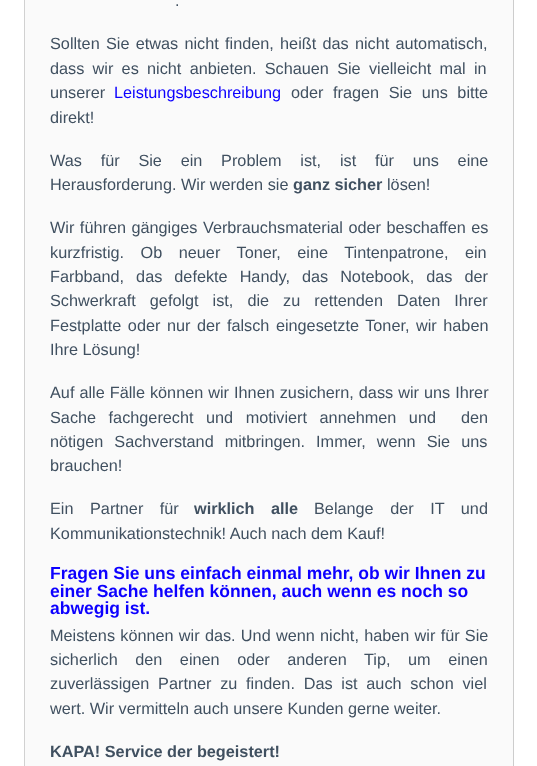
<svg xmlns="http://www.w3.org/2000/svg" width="537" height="766">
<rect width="100%" height="100%" fill="#fff"/>
<rect x="24" y="-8" width="490" height="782" rx="6" fill="#0000001a" filter="blur(0.5px)"/>
<path d="M26-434c-1 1-2 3-2 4v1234c0 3 2 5 5 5h477c2 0 3-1 4-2l-2 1h-478c-3 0-5-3-5-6v-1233z" fill="#d1d1d1"/>
<path d="M26 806c1 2 3 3 5 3h478c3 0 5-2 5-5v-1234c0-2-1-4-3-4c1 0 1 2 1 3v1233c0 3-2 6-4 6h-478c-1 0-3-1-4-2z" fill="#0000001a"/>
<rect x="25" width="488" height="766" fill="#fafafa"/>
<text x="175" y="6" style="font-family:Liberation Sans;font-size:16.25px;fill:#405060">.</text>
<text x="50" y="49" word-spacing="1.75" style="font-family:Liberation Sans;font-size:16.25px;fill:#405060">Sollten Sie etwas nicht finden, heißt das nicht automatisch,</text>
<text x="50" y="74" word-spacing="3.75" style="font-family:Liberation Sans;font-size:16.25px;fill:#405060">dass wir es nicht anbieten. Schauen Sie vielleicht mal in</text>
<text x="50" y="98" style="font-family:Liberation Sans;font-size:16.25px;fill:#405060">unserer</text>
<text x="114" y="98" style="font-family:Liberation Sans;font-size:16.25px;fill:#0d00ff">Leistungsbeschreibung</text>
<text x="291" y="98" word-spacing="5" style="font-family:Liberation Sans;font-size:16.25px;fill:#405060">oder fragen Sie uns bitte</text>
<text x="50" y="123" style="font-family:Liberation Sans;font-size:16.25px;fill:#405060">direkt!</text>
<text x="50" y="166" word-spacing="14.25" style="font-family:Liberation Sans;font-size:16.25px;fill:#405060">Was für Sie ein Problem ist, ist für uns eine</text>
<text x="50" y="190" style="font-family:Liberation Sans;font-size:16.25px;fill:#405060">Herausforderung. Wir werden sie</text>
<text x="293" y="190" style="font-family:Liberation Sans;font-size:16.25px;font-weight:bold;fill:#405060">ganz sicher</text>
<text x="387" y="190" style="font-family:Liberation Sans;font-size:16.25px;fill:#405060">lösen!</text>
<text x="50" y="233" word-spacing="1" style="font-family:Liberation Sans;font-size:16.25px;fill:#405060">Wir führen gängiges Verbrauchsmaterial oder beschaffen es</text>
<text x="50" y="258" word-spacing="12" style="font-family:Liberation Sans;font-size:16.25px;fill:#405060">kurzfristig. Ob neuer Toner, eine Tintenpatrone, ein</text>
<text x="50" y="282" word-spacing="7.5" style="font-family:Liberation Sans;font-size:16.25px;fill:#405060">Farbband, das defekte Handy, das Notebook, das der</text>
<text x="50" y="306" word-spacing="9.5" style="font-family:Liberation Sans;font-size:16.25px;fill:#405060">Schwerkraft gefolgt ist, die zu rettenden Daten Ihrer</text>
<text x="50" y="331" word-spacing="2" style="font-family:Liberation Sans;font-size:16.25px;fill:#405060">Festplatte oder nur der falsch eingesetzte Toner, wir haben</text>
<text x="50" y="355" style="font-family:Liberation Sans;font-size:16.25px;fill:#405060">Ihre Lösung!</text>
<text x="50" y="398" word-spacing="0.5" style="font-family:Liberation Sans;font-size:16.25px;fill:#405060">Auf alle Fälle können wir Ihnen zusichern, dass wir uns Ihrer</text>
<text x="50" y="423" word-spacing="8" style="font-family:Liberation Sans;font-size:16.25px;fill:#405060" xml:space="preserve">Sache fachgerecht und motiviert annehmen und  den</text>
<text x="50" y="447" word-spacing="6.5" style="font-family:Liberation Sans;font-size:16.25px;fill:#405060">nötigen Sachverstand mitbringen. Immer, wenn Sie uns</text>
<text x="50" y="471" style="font-family:Liberation Sans;font-size:16.25px;fill:#405060">brauchen!</text>
<text x="50" y="514" word-spacing="12" style="font-family:Liberation Sans;font-size:16.25px;fill:#405060">Ein Partner für</text>
<text x="194" y="514" word-spacing="12" style="font-family:Liberation Sans;font-size:16.25px;font-weight:bold;fill:#405060">wirklich alle</text>
<text x="314" y="514" word-spacing="12" style="font-family:Liberation Sans;font-size:16.25px;fill:#405060">Belange der IT und</text>
<text x="50" y="539" style="font-family:Liberation Sans;font-size:16.25px;fill:#405060">Kommunikationstechnik! Auch nach dem Kauf!</text>
<text x="50" y="579" style="font-family:Liberation Sans;font-size:17.5px;font-weight:bold;fill:#0d00ff">Fragen Sie uns einfach einmal mehr, ob wir Ihnen zu</text>
<text x="50" y="597" style="font-family:Liberation Sans;font-size:17.5px;font-weight:bold;fill:#0d00ff">einer Sache helfen können, auch wenn es noch so</text>
<text x="50" y="614" style="font-family:Liberation Sans;font-size:17.5px;font-weight:bold;fill:#0d00ff">abwegig ist.</text>
<text x="50" y="641" word-spacing="0.75" style="font-family:Liberation Sans;font-size:16.25px;fill:#405060">Meistens können wir das. Und wenn nicht, haben wir für Sie</text>
<text x="50" y="665" word-spacing="13" style="font-family:Liberation Sans;font-size:16.25px;fill:#405060">sicherlich den einen oder anderen Tip, um einen</text>
<text x="50" y="689" word-spacing="4.25" style="font-family:Liberation Sans;font-size:16.25px;fill:#405060">zuverlässigen Partner zu finden. Das ist auch schon viel</text>
<text x="50" y="714" style="font-family:Liberation Sans;font-size:16.25px;fill:#405060">wert. Wir vermitteln auch unsere Kunden gerne weiter.</text>
<text x="50" y="757" style="font-family:Liberation Sans;font-size:16.25px;font-weight:bold;fill:#405060">KAPA! Service der begeistert!</text>
</svg>
